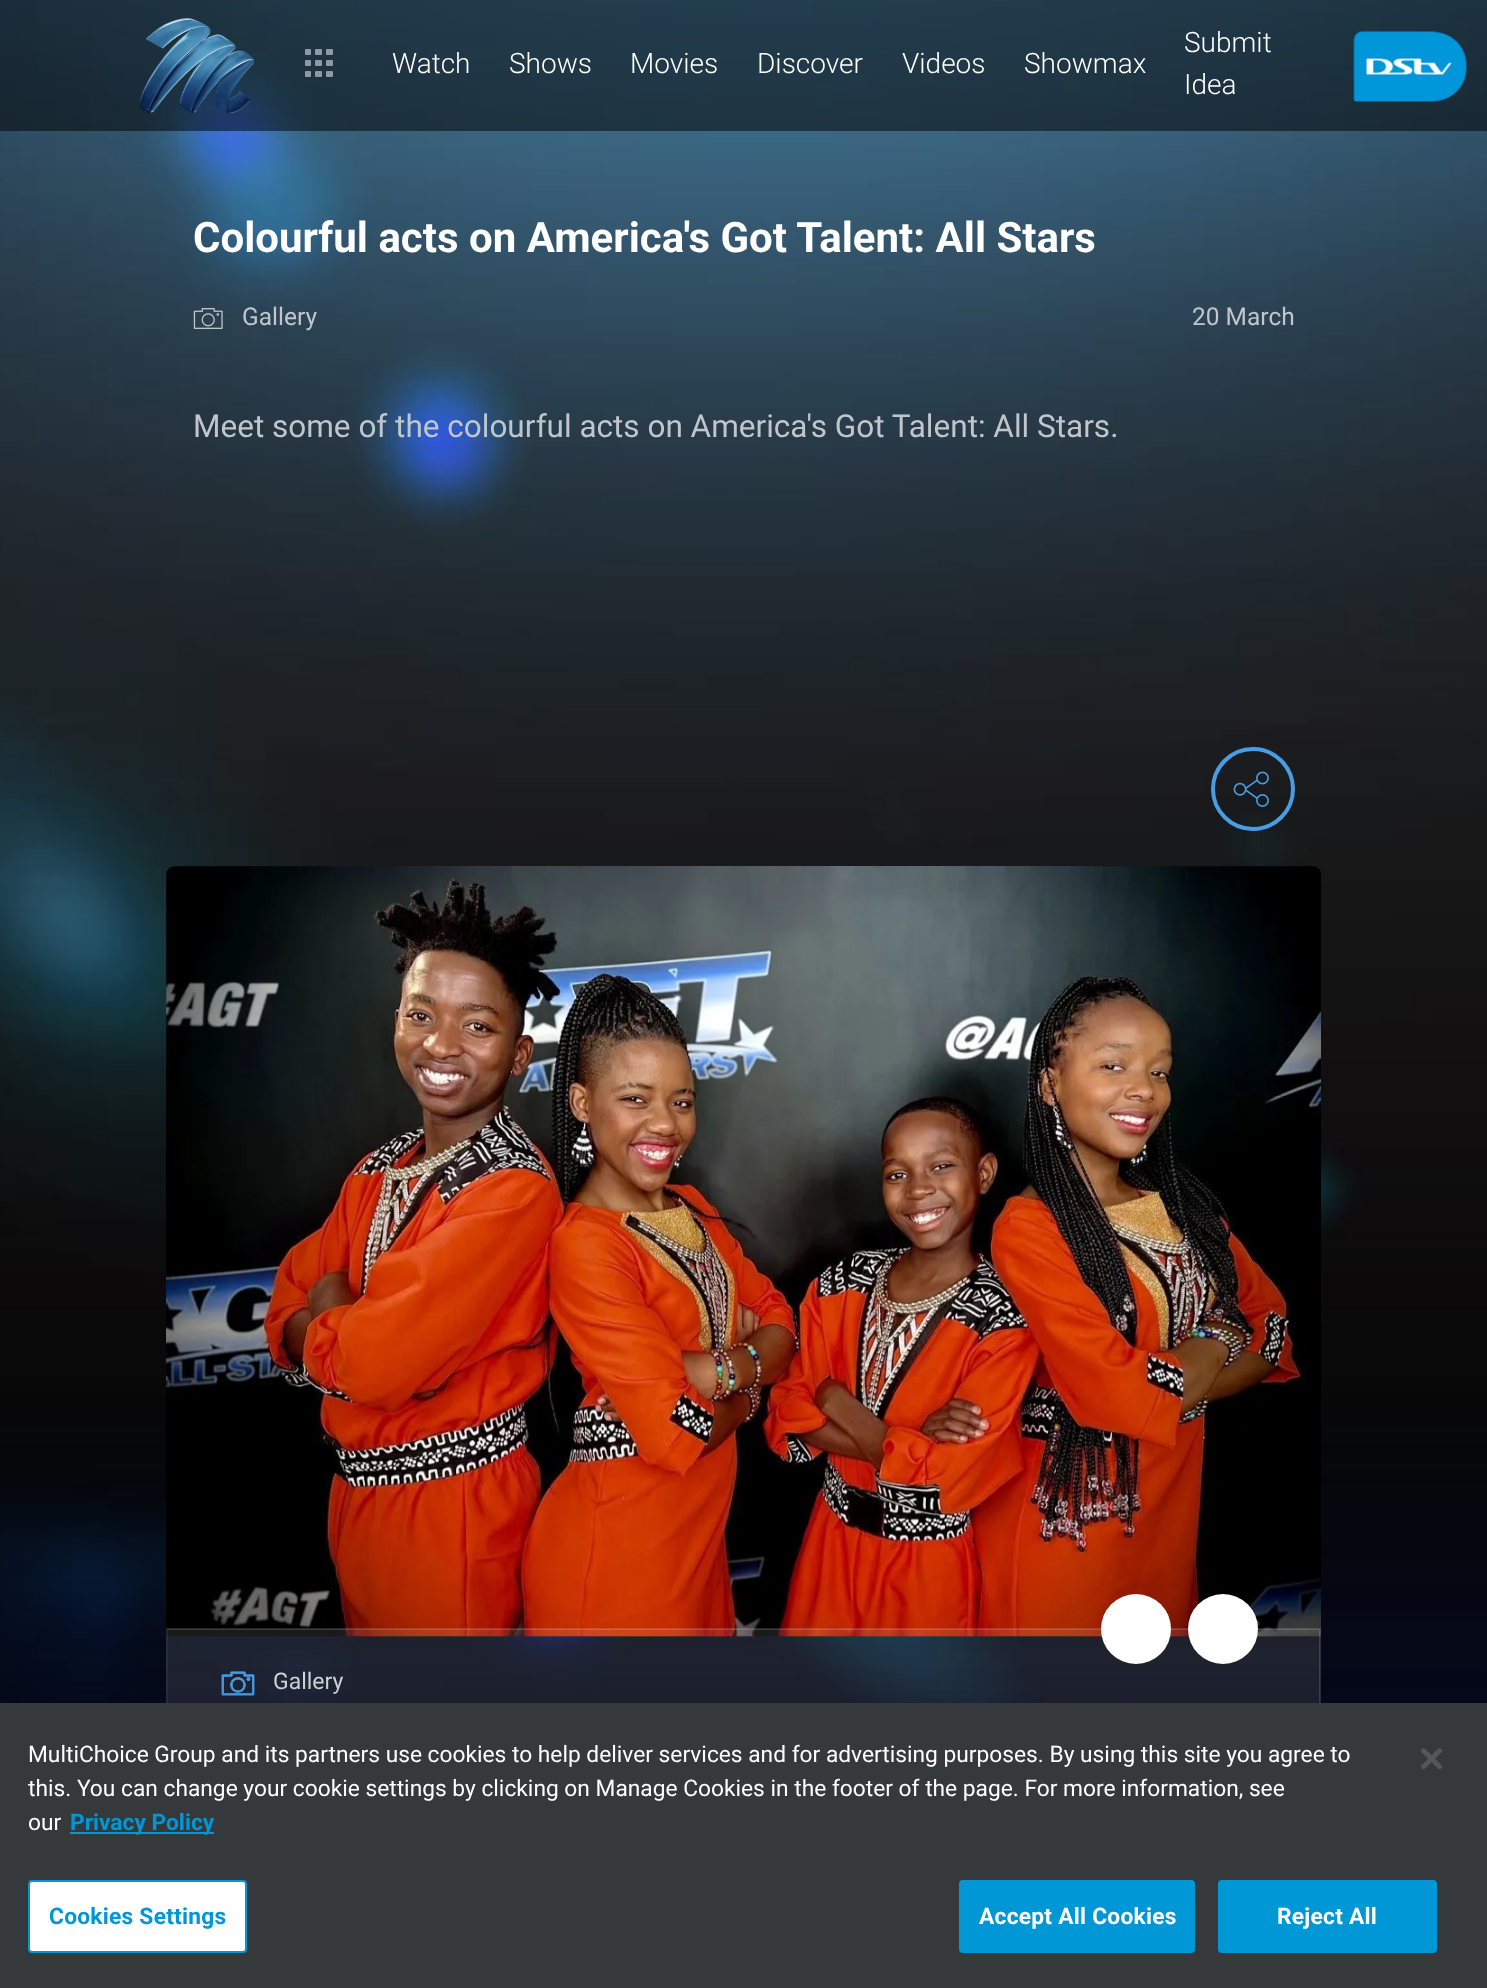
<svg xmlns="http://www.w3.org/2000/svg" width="1487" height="1988">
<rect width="100%" height="100%" fill="#081031"/>
<image x="0" y="0" width="1487" height="1703" href="media/1.png"/>
<rect width="1487" height="131" fill="#00000080"/>
<image x="140" y="17" width="114" height="97" href="media/2.png"/>
<image x="305" y="49" width="28" height="28" href="media/3.png"/>
<text x="392" y="73" style="font-family:Roboto;font-size:28px;font-weight:300;fill:#fff">Watch</text>
<text x="509" y="73" style="font-family:Roboto;font-size:28px;font-weight:300;fill:#fff">Shows</text>
<text x="630" y="73" style="font-family:Roboto;font-size:28px;font-weight:300;fill:#fff">Movies</text>
<text x="757" y="73" style="font-family:Roboto;font-size:28px;font-weight:300;fill:#fff">Discover</text>
<text x="902" y="73" style="font-family:Roboto;font-size:28px;font-weight:300;fill:#fff">Videos</text>
<text x="1024" y="73" style="font-family:Roboto;font-size:28px;font-weight:300;fill:#fff">Showmax</text>
<text x="1184" y="52" style="font-family:Roboto;font-size:28px;font-weight:300;fill:#fff">Submit</text>
<text x="1184" y="94" style="font-family:Roboto;font-size:28px;font-weight:300;fill:#fff">Idea</text>
<image x="1353" y="31" width="114" height="71" href="media/4.png"/>
<text x="193" y="252" style="font-family:Roboto;font-size:42px;font-weight:bold;fill:#fff">Colourful acts on America's Got Talent: All Stars</text>
<image x="193" y="308" width="30" height="21" href="media/5.png"/>
<text x="242" y="325" style="font-family:Roboto;font-size:24.5px;fill:#c0c6cc">Gallery</text>
<text x="1192" y="325" style="font-family:Roboto;font-size:24.5px;fill:#c0c6cc">20 March</text>
<text x="193" y="437" style="font-family:Roboto;font-size:31.5px;fill:#c0c6cc">Meet some of the colourful acts on America's Got Talent: All Stars.</text>
<circle cx="1253" cy="789" r="40" fill="none" stroke="#489ee5" stroke-width="4"/>
<image x="1233" y="771" width="36" height="36" href="media/6.png"/>
<image x="166" y="866" width="1155" height="771" href="media/7.png"/>
<rect x="167" y="1629" width="1153" height="304" fill="none" stroke="#ffffff26" stroke-width="2"/>
<rect x="168" y="1629" width="1152" height="74" fill="#ffffff1a"/>
<circle cx="1136" cy="1629" r="35" fill="#fff"/>
<circle cx="1223" cy="1629" r="35" fill="#fff"/>
<image x="221" y="1671" width="34" height="25" href="media/8.png"/>
<text x="273" y="1689" style="font-family:Roboto;font-size:23px;fill:#d2d4d7">Gallery</text>
<rect y="1703" width="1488" height="285" fill="#00000033" filter="blur(16px)"/>
<rect y="1703" width="1487" height="285" fill="#36393b"/>
<text x="28" y="1762" style="font-family:Roboto;font-size:22.75px;fill:#fff">MultiChoice Group and its partners use cookies to help deliver services and for advertising purposes. By using this site you agree to</text>
<text x="28" y="1796" style="font-family:Roboto;font-size:22.75px;fill:#fff">this. You can change your cookie settings by clicking on Manage Cookies in the footer of the page. For more information, see</text>
<text x="28" y="1830" style="font-family:Roboto;font-size:22.75px;fill:#fff">our</text>
<rect x="70" y="1832" width="144" height="2" fill="#0097d7"/>
<text x="70" y="1830" style="font-family:Roboto;font-size:22.75px;font-weight:bold;fill:#0097d7">Privacy Policy</text>
<rect x="29" y="1881" width="217" height="71" rx="3" fill="#fff" stroke="#0097d7" stroke-width="2"/>
<text x="49" y="1924" style="font-family:Roboto;font-size:22.75px;font-weight:bold;letter-spacing:0.25px;fill:#0097d7">Cookies Settings</text>
<rect x="960" y="1881" width="234" height="71" rx="3" fill="#0097d7" stroke="#0097d7" stroke-width="2"/>
<text x="979" y="1924" style="font-family:Roboto;font-size:22.75px;font-weight:bold;letter-spacing:0.25px;fill:#fff">Accept All Cookies</text>
<rect x="1219" y="1881" width="217" height="71" rx="3" fill="#0097d7" stroke="#0097d7" stroke-width="2"/>
<text x="1277" y="1924" style="font-family:Roboto;font-size:22.75px;font-weight:bold;letter-spacing:0.25px;fill:#fff">Reject All</text>
<image x="1421" y="1748" width="21" height="21" href="media/9.png"/>
</svg>
